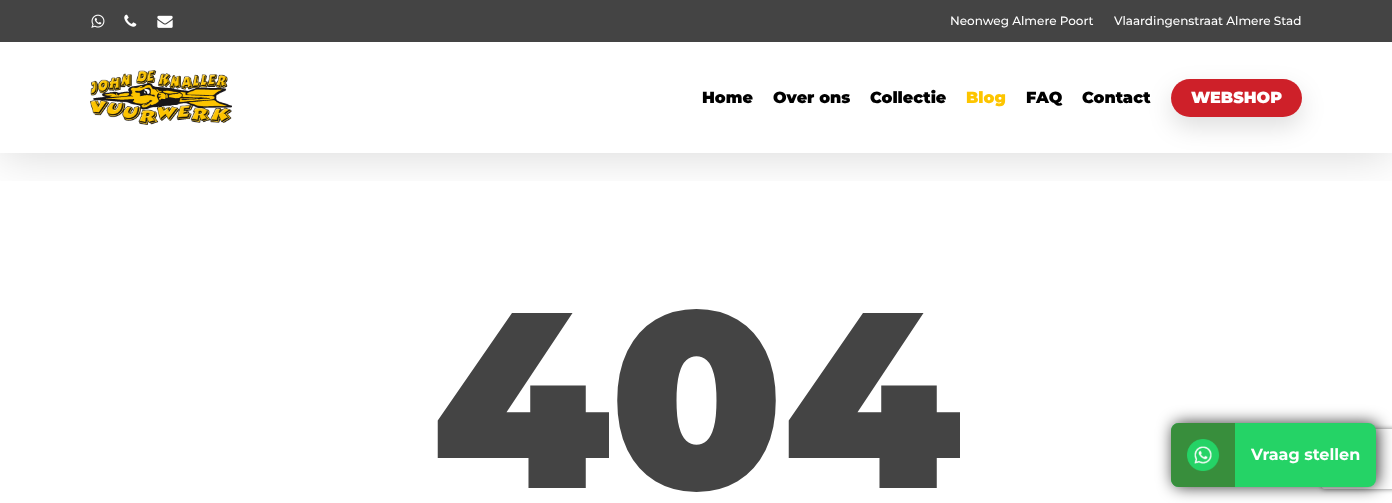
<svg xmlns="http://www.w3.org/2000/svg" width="1392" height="503">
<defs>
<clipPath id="clip1"><rect x="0" y="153" width="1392" height="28"/></clipPath>
<clipPath id="clip2"><path d="M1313 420h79v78h-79zm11 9h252c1 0 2 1 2 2v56c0 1-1 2-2 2h-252c-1 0-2-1-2-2v-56c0-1 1-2 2-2z" clip-rule="evenodd"/></clipPath>
</defs>
<rect width="100%" height="100%" fill="#fff"/>
<g clip-path="url(#clip1)">
<rect y="3" width="1392" height="153" fill="#00000026" filter="blur(22.5px)"/>
</g>
<rect width="1392" height="42" fill="#444"/>
<image x="91" y="14" width="14" height="14" href="media/1.png"/>
<image x="124" y="14" width="13" height="13" href="media/2.png"/>
<image x="157" y="15" width="16" height="13" href="media/3.png"/>
<text x="950" y="25" style="font-family:Montserrat;font-size:12px;font-weight:500;fill:#fff">Neonweg Almere Poort</text>
<text x="1114" y="25" style="font-family:Montserrat;font-size:12px;font-weight:500;fill:#fff">Vlaardingenstraat Almere Stad</text>
<image x="90" y="70" width="142" height="55" href="media/4.png"/>
<text x="702" y="103" style="font-family:Montserrat;font-size:16px;font-weight:900;fill:#000">Home</text>
<text x="773" y="103" style="font-family:Montserrat;font-size:16px;font-weight:900;fill:#000">Over ons</text>
<text x="870" y="103" style="font-family:Montserrat;font-size:16px;font-weight:900;fill:#000">Collectie</text>
<text x="966" y="103" style="font-family:Montserrat;font-size:16px;font-weight:900;fill:#fdc500">Blog</text>
<text x="1026" y="103" style="font-family:Montserrat;font-size:16px;font-weight:900;fill:#000">FAQ</text>
<text x="1082" y="103" style="font-family:Montserrat;font-size:16px;font-weight:900;fill:#000">Contact</text>
<rect x="1171" y="89" width="131" height="38" rx="19" fill="#00000021" filter="blur(12.5px)"/>
<rect x="1171" y="79" width="131" height="38" rx="19" fill="#ce2029"/>
<text x="1191" y="103" style="font-family:Montserrat;font-size:16px;font-weight:900;fill:#fff">WEBSHOP</text>
<text x="432" y="488" style="font-family:Montserrat;font-size:250px;font-weight:900;fill:#444">404</text>
<g clip-path="url(#clip2)">
<rect x="1322" y="429" width="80" height="60" rx="2" fill="#808080" filter="blur(2.5px)"/>
</g>
<rect x="1173" y="423" width="205" height="64" rx="8" fill="#000000cc" filter="blur(8px)"/>
<rect x="1171" y="423" width="205" height="64" rx="8" fill="#25d366"/>
<path d="M1179 423h56v64h-56c-4.5 0-8-3.5-8-8v-48c0-4.5 3.5-8 8-8z" fill="#388e3c"/>
<image x="1187" y="439" width="33" height="32" href="media/5.png"/>
<text x="1251" y="460" style="font-family:Montserrat;font-size:16px;font-weight:bold;fill:#fff">Vraag stellen</text>
</svg>
